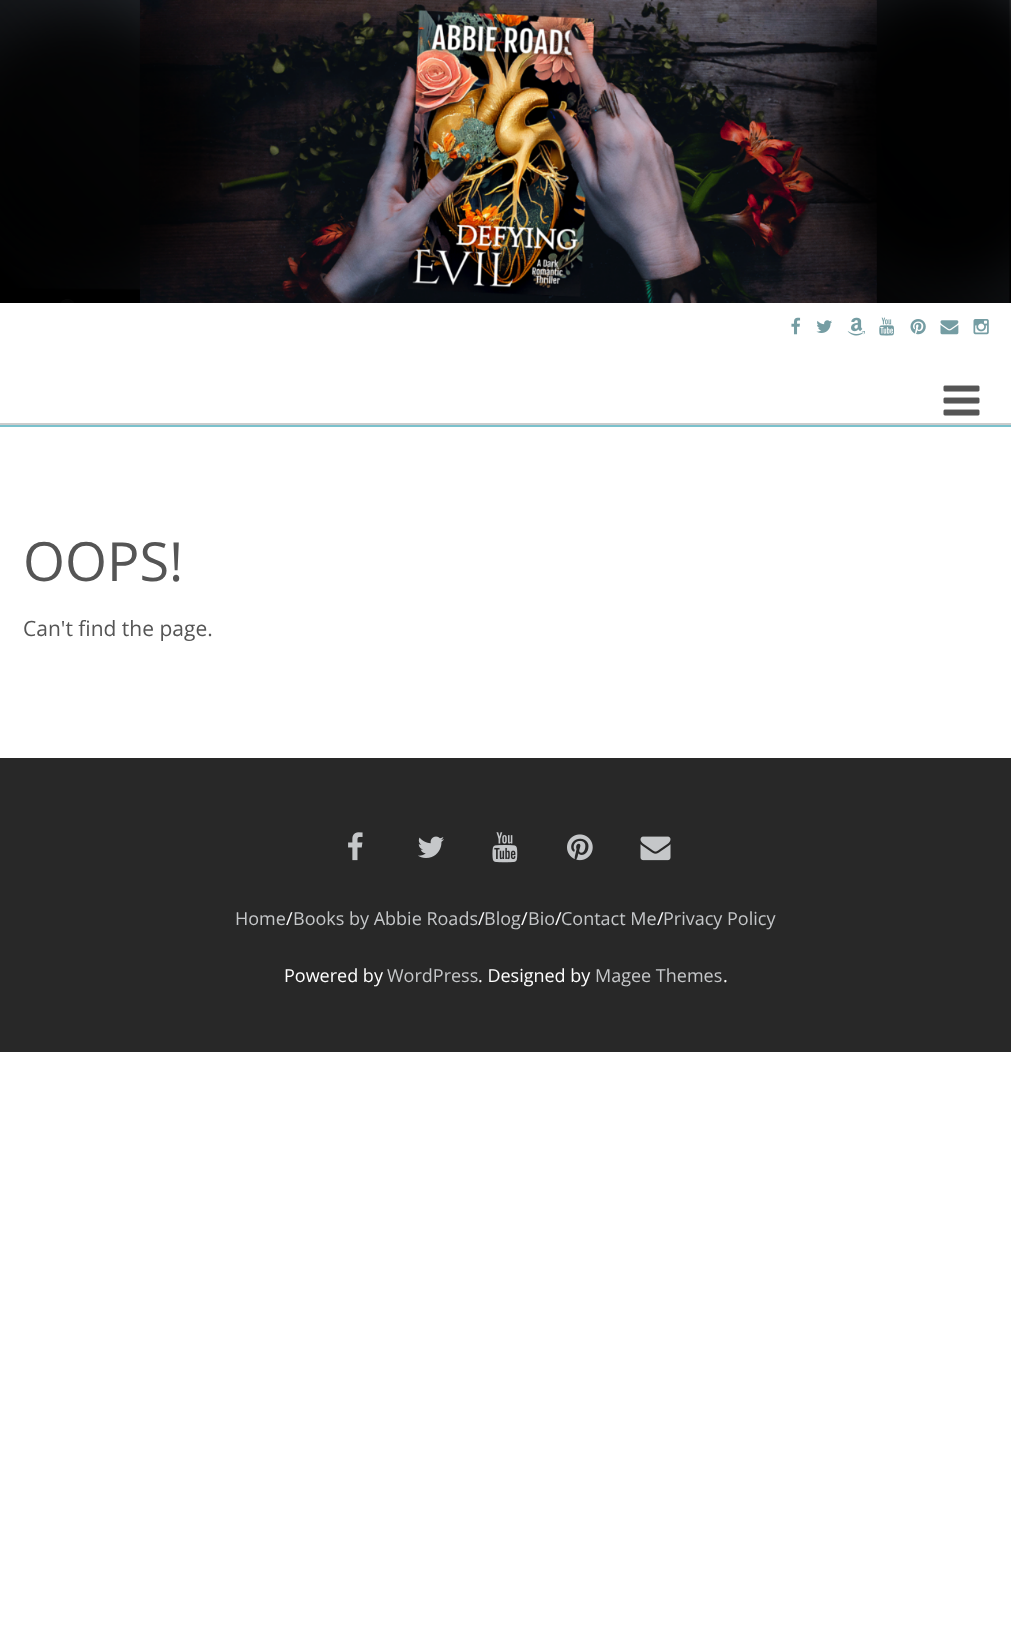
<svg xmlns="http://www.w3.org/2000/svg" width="1011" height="1647">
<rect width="100%" height="100%" fill="#fff"/>
<image x="0" y="0" width="1011" height="303" href="media/1.png"/>
<image x="791" y="317" width="10" height="18" href="media/2.png"/>
<image x="816" y="320" width="16" height="13" href="media/3.png"/>
<image x="847" y="317" width="18" height="19" href="media/4.png"/>
<image x="879" y="317" width="15" height="19" href="media/5.png"/>
<image x="910" y="319" width="16" height="16" href="media/6.png"/>
<image x="940" y="320" width="19" height="15" href="media/7.png"/>
<image x="973" y="319" width="16" height="16" href="media/8.png"/>
<rect y="425" width="1011" height="2" fill="#7ac1cc"/>
<image x="943" y="385" width="37" height="31" href="media/9.png"/>
<rect y="423" width="1011" height="2" fill="#ccc"/>
<text x="23" y="581" style="font-family:Open Sans;font-size:54px;fill:#555">OOPS!</text>
<text x="23" y="636" style="font-family:Open Sans;font-size:21px;fill:#555">Can't find the page.</text>
<rect y="758" width="1011" height="294" fill="#282828"/>
<image x="348" y="832" width="15" height="29" href="media/10.png"/>
<image x="418" y="836" width="26" height="22" href="media/11.png"/>
<image x="492" y="832" width="26" height="31" href="media/12.png"/>
<image x="567" y="834" width="26" height="27" href="media/13.png"/>
<image x="640" y="836" width="31" height="25" href="media/14.png"/>
<text x="235" y="925" style="font-family:Open Sans;font-size:18px;fill:#c5c7c9">Home</text>
<text x="286" y="925" style="font-family:Open Sans;font-size:18px;fill:#fff">/</text>
<text x="293" y="925" style="font-family:Open Sans;font-size:18px;fill:#c5c7c9">Books by Abbie Roads</text>
<text x="478" y="925" style="font-family:Open Sans;font-size:18px;fill:#fff">/</text>
<text x="484" y="925" style="font-family:Open Sans;font-size:18px;fill:#c5c7c9">Blog</text>
<text x="521" y="925" style="font-family:Open Sans;font-size:18px;fill:#fff">/</text>
<text x="528" y="925" style="font-family:Open Sans;font-size:18px;fill:#c5c7c9">Bio</text>
<text x="555" y="925" style="font-family:Open Sans;font-size:18px;fill:#fff">/</text>
<text x="561" y="925" style="font-family:Open Sans;font-size:18px;fill:#c5c7c9">Contact Me</text>
<text x="657" y="925" style="font-family:Open Sans;font-size:18px;fill:#fff">/</text>
<text x="663" y="925" style="font-family:Open Sans;font-size:18px;fill:#c5c7c9">Privacy Policy</text>
<text x="284" y="982" style="font-family:Open Sans;font-size:18px;fill:#fff">Powered by</text>
<text x="387" y="982" style="font-family:Open Sans;font-size:18px;fill:#c5c7c9">WordPress</text>
<text x="478" y="982" style="font-family:Open Sans;font-size:18px;fill:#fff">. Designed by</text>
<text x="595" y="982" style="font-family:Open Sans;font-size:18px;fill:#c5c7c9">Magee Themes</text>
<text x="723" y="982" style="font-family:Open Sans;font-size:18px;fill:#fff">.</text>
</svg>
